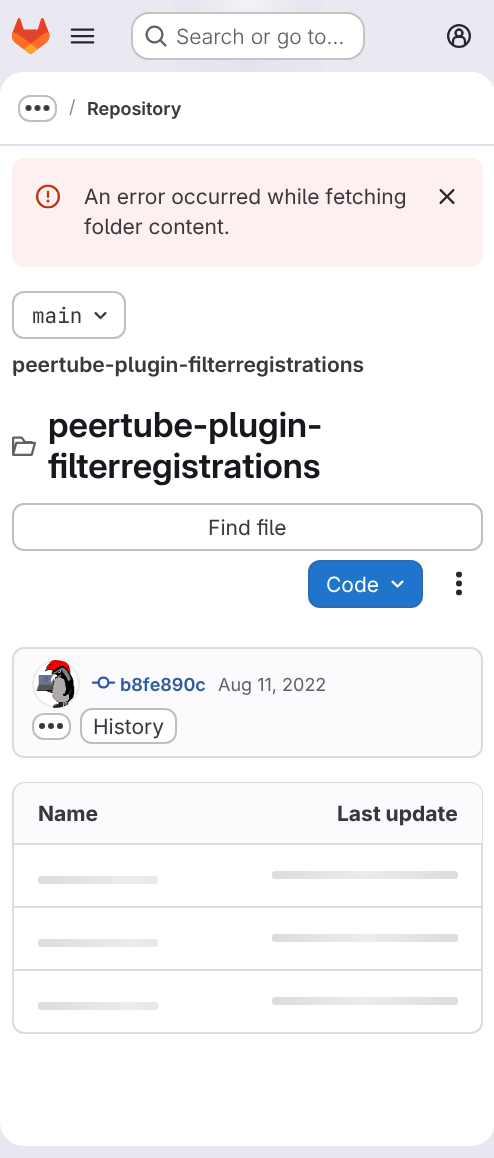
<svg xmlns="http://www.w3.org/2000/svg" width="494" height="1158">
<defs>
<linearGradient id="g1" gradientUnits="userSpaceOnUse" x1="354" y1="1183" x2="141" y2="-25"><stop offset="0" stop-color="#e8e6f0"/><stop offset="0.7" stop-color="#eae9f2"/></linearGradient>
<radialGradient id="g2" gradientUnits="userSpaceOnUse" cx="0" cy="0" r="1" gradientTransform="matrix(248 0 0 1158 248 0)"><stop offset="0" stop-color="#e4e2ed"/><stop offset="0.42" stop-color="#e4e2ed" stop-opacity="0"/></radialGradient>
<radialGradient id="g3" gradientUnits="userSpaceOnUse" cx="0" cy="0" r="1" gradientTransform="matrix(248 0 0 1158 248 0)"><stop offset="0" stop-color="#e4e2ec"/><stop offset="0.3" stop-color="#e4e2ec" stop-opacity="0"/></radialGradient>
<radialGradient id="g4" gradientUnits="userSpaceOnUse" cx="248" cy="0" r="1184"><stop offset="0" stop-color="#fff" stop-opacity="0.6"/><stop offset="0.05" stop-color="#fff" stop-opacity="0"/></radialGradient>
<clipPath id="clip1"><rect x="12" y="351" width="353" height="26" rx="6"/></clipPath>
<linearGradient id="g5" gradientUnits="userSpaceOnUse" x1="272" y1="871" x2="458" y2="871"><stop offset="0" stop-color="#dcdcde"/><stop offset="0.5" stop-color="#ececef"/><stop offset="1" stop-color="#dcdcde"/></linearGradient>
<linearGradient id="g6" gradientUnits="userSpaceOnUse" x1="38" y1="876" x2="223" y2="876"><stop offset="0" stop-color="#dcdcde"/><stop offset="0.5" stop-color="#ececef"/><stop offset="1" stop-color="#dcdcde"/></linearGradient>
<linearGradient id="g7" gradientUnits="userSpaceOnUse" x1="272" y1="934" x2="458" y2="934"><stop offset="0" stop-color="#dcdcde"/><stop offset="0.5" stop-color="#ececef"/><stop offset="1" stop-color="#dcdcde"/></linearGradient>
<linearGradient id="g8" gradientUnits="userSpaceOnUse" x1="38" y1="939" x2="223" y2="939"><stop offset="0" stop-color="#dcdcde"/><stop offset="0.5" stop-color="#ececef"/><stop offset="1" stop-color="#dcdcde"/></linearGradient>
<linearGradient id="g9" gradientUnits="userSpaceOnUse" x1="272" y1="997" x2="458" y2="997"><stop offset="0" stop-color="#dcdcde"/><stop offset="0.5" stop-color="#ececef"/><stop offset="1" stop-color="#dcdcde"/></linearGradient>
<linearGradient id="g10" gradientUnits="userSpaceOnUse" x1="38" y1="1002" x2="223" y2="1002"><stop offset="0" stop-color="#dcdcde"/><stop offset="0.5" stop-color="#ececef"/><stop offset="1" stop-color="#dcdcde"/></linearGradient>
</defs>
<rect width="100%" height="100%" fill="#fff"/>
<rect width="494" height="1158" fill="url(#g1)"/>
<rect x="173" width="150" height="72" fill="url(#g2)"/>
<rect x="217" width="62" height="62" fill="url(#g3)"/>
<rect x="198" width="100" height="12" fill="url(#g4)"/>
<image x="12" y="18" width="38" height="36" href="media/1.png"/>
<image x="70" y="28" width="25" height="16" href="media/2.png"/>
<rect x="131" y="12" width="234" height="48" rx="18" fill="#fff"/>
<rect x="132" y="13" width="232" height="46" rx="17" fill="none" stroke="#0505063d" stroke-width="2"/>
<image x="145" y="25" width="22" height="22" href="media/3.png"/>
<text x="176" y="44" style="font-family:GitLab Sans;font-size:21px;font-weight:300;fill:#626168">Search or go to…</text>
<image x="447" y="24" width="24" height="24" href="media/4.png"/>
<rect y="72" width="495" height="1074" rx="24" fill="#fff"/>
<path d="M24 72h447c13.5 0 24 10.5 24 24v50h-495v-50c0-13.5 10.5-24 24-24z" fill="#fff"/>
<rect y="144" width="494" height="2" fill="#e1dfec"/>
<rect x="19" y="96" width="37" height="25" rx="11" fill="none" stroke="#bfbfc3" stroke-width="2"/>
<image x="25" y="105" width="25" height="6" href="media/5.png"/>
<text x="69" y="113" style="font-family:GitLab Sans;font-size:18px;fill:#89888d">/</text>
<text x="87" y="115" style="font-family:'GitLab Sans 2';font-size:18px;font-weight:600;fill:#3a383f">Repository</text>
<rect x="12" y="158" width="471" height="109" rx="12" fill="#fcf1ef"/>
<image x="36" y="184" width="24" height="25" href="media/6.png"/>
<text x="84" y="204" style="font-family:GitLab Sans;font-size:21px;fill:#3a383f">An error occurred while fetching</text>
<text x="84" y="234" style="font-family:GitLab Sans;font-size:21px;fill:#3a383f">folder content.</text>
<image x="439" y="189" width="16" height="15" href="media/7.png"/>
<rect x="13" y="292" width="112" height="46" rx="11" fill="none" stroke="#bfbfc3" stroke-width="2"/>
<text x="32" y="323" style="font-family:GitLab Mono;font-size:21px;fill:#3a383f">main</text>
<image x="94" y="312" width="13" height="8" href="media/8.png"/>
<g clip-path="url(#clip1)">
<text x="12" y="372" style="font-family:'GitLab Sans 2';font-size:21px;font-weight:600;fill:#3a383f">peertube-plugin-filterregistrations</text>
</g>
<image x="12" y="436" width="24" height="20" href="media/9.png"/>
<text x="48" y="437" style="font-family:GitLab Sans;font-size:34.5px;font-weight:600;fill:#18171d">peertube-plugin-</text>
<text x="48" y="478" style="font-family:GitLab Sans;font-size:34.5px;font-weight:600;fill:#18171d">filterregistrations</text>
<rect x="13" y="504" width="469" height="46" rx="11" fill="none" stroke="#bfbfc3" stroke-width="2"/>
<text x="208" y="535" style="font-family:GitLab Sans;font-size:21px;fill:#3a383f">Find file</text>
<rect x="309" y="561" width="113" height="46" rx="11" fill="#1f75cb" stroke="#2f68b4" stroke-width="2"/>
<text x="326" y="592" style="font-family:GitLab Sans;font-size:21px;fill:#fff">Code</text>
<image x="391" y="580" width="13" height="8" href="media/10.png"/>
<image x="456" y="571" width="6" height="25" href="media/11.png"/>
<rect x="13" y="648" width="469" height="109" rx="11" fill="#fbfafd" stroke="#dcdcde" stroke-width="2"/>
<image x="32" y="660" width="47" height="48" href="media/12.png"/>
<circle cx="56" cy="684" r="23" fill="none" stroke="#05050614" stroke-width="2"/>
<image x="91" y="676" width="25" height="13" href="media/13.png"/>
<text x="120" y="691" style="font-family:'GitLab Sans 2';font-size:18px;font-weight:600;fill:#2f5ca0">b8fe890c</text>
<text x="218" y="691" style="font-family:GitLab Sans;font-size:18px;fill:#626168">Aug 11, 2022</text>
<rect x="33" y="714" width="37" height="25" rx="11" fill="#fff" stroke="#bfbfc3" stroke-width="2"/>
<image x="39" y="723" width="24" height="6" href="media/14.png"/>
<rect x="81" y="709" width="95" height="34" rx="11" fill="#fff" stroke="#bfbfc3" stroke-width="2"/>
<text x="93" y="734" style="font-family:GitLab Sans;font-size:21px;fill:#3a383f">History</text>
<rect x="13" y="783" width="469" height="250" rx="11" fill="none" stroke="#dcdcde" stroke-width="2"/>
<path d="M25 783h223v62h-234v-51c0-6 5-11 11-11z" fill="#fbfafd"/>
<text x="38" y="821" style="font-family:GitLab Sans;font-size:21px;font-weight:bold;fill:#3a383f">Name</text>
<path d="M248 783h223c6 0 11 5 11 11v51h-234z" fill="#fbfafd"/>
<text x="337" y="821" style="font-family:GitLab Sans;font-size:21px;font-weight:bold;fill:#3a383f">Last update</text>
<rect x="14" y="843" width="468" height="2" fill="#dcdcde"/>
<rect x="272" y="871" width="186" height="8" rx="3" fill="url(#g5)"/>
<rect x="38" y="876" width="120" height="8" rx="3" fill="url(#g6)"/>
<rect x="14" y="906" width="468" height="2" fill="#dcdcde"/>
<rect x="272" y="934" width="186" height="8" rx="3" fill="url(#g7)"/>
<rect x="38" y="939" width="120" height="8" rx="3" fill="url(#g8)"/>
<rect x="14" y="969" width="468" height="2" fill="#dcdcde"/>
<rect x="272" y="997" width="186" height="8" rx="3" fill="url(#g9)"/>
<rect x="38" y="1002" width="120" height="8" rx="3" fill="url(#g10)"/>
</svg>
